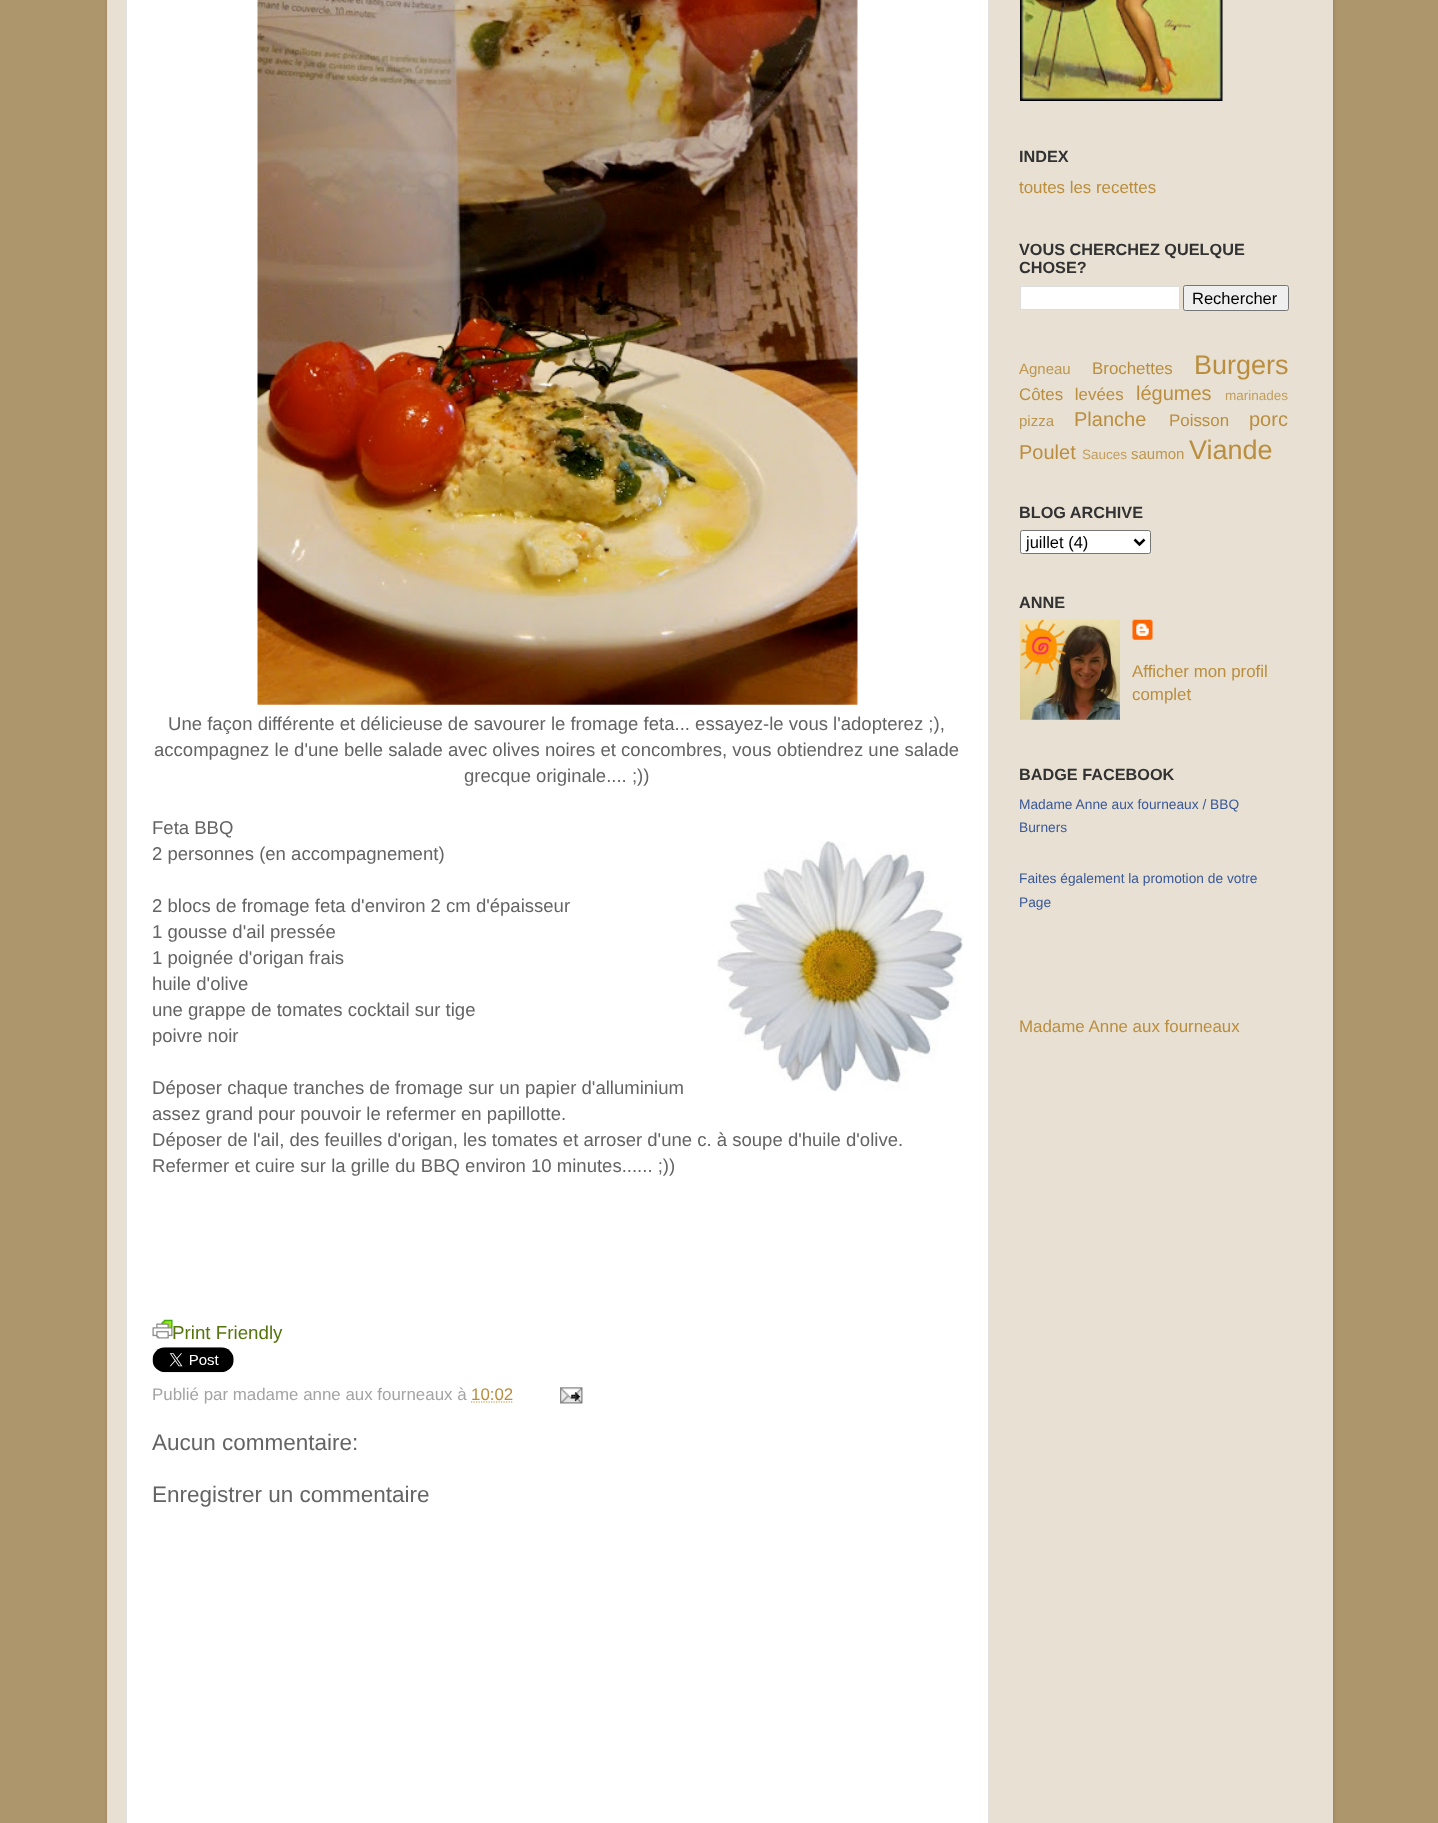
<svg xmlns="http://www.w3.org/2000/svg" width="1438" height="1823">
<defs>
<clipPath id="clip1"><path d="M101 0h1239v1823h-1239zm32-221h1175c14 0 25 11 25 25v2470h-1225v-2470c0-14 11-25 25-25z" clip-rule="evenodd"/></clipPath>
</defs>
<rect width="100%" height="100%" fill="#ad966c"/>
<g clip-path="url(#clip1)">
<rect x="108" y="-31" width="1225" height="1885" rx="25" fill="#00000026" filter="blur(2px)"/>
</g>
<rect x="107" width="1226" height="1823" fill="#ffffffb3"/>
<rect x="126.5" y="-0.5" width="862" height="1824" fill="#fff" stroke="#e2e2e2"/>
<image x="257" y="0" width="601" height="705" href="media/1.png"/>
<text x="168" y="730" style="font-family:Liberation Sans;font-size:18.55px;fill:#646464">Une façon différente et délicieuse de savourer le fromage feta... essayez-le vous l'adopterez ;),</text>
<text x="154" y="756" style="font-family:Liberation Sans;font-size:18.55px;fill:#646464">accompagnez le d'une belle salade avec olives noires et concombres, vous obtiendrez une salade</text>
<text x="464" y="782" style="font-family:Liberation Sans;font-size:18.55px;fill:#646464">grecque originale.... ;))</text>
<text x="152" y="834" style="font-family:Liberation Sans;font-size:18.55px;fill:#646464">Feta BBQ</text>
<text x="152" y="860" style="font-family:Liberation Sans;font-size:18.55px;fill:#646464">2 personnes (en accompagnement)</text>
<image x="717" y="841" width="246" height="250" href="media/2.png"/>
<text x="152" y="912" style="font-family:Liberation Sans;font-size:18.55px;fill:#646464">2 blocs de fromage feta d'environ 2 cm d'épaisseur</text>
<text x="152" y="938" style="font-family:Liberation Sans;font-size:18.55px;fill:#646464">1 gousse d'ail pressée</text>
<text x="152" y="964" style="font-family:Liberation Sans;font-size:18.55px;fill:#646464">1 poignée d'origan frais</text>
<text x="152" y="990" style="font-family:Liberation Sans;font-size:18.55px;fill:#646464">huile d'olive</text>
<text x="152" y="1016" style="font-family:Liberation Sans;font-size:18.55px;fill:#646464">une grappe de tomates cocktail sur tige</text>
<text x="152" y="1042" style="font-family:Liberation Sans;font-size:18.55px;fill:#646464">poivre noir</text>
<text x="152" y="1094" style="font-family:Liberation Sans;font-size:18.55px;fill:#646464">Déposer chaque tranches de fromage sur un papier d'alluminium</text>
<text x="152" y="1120" style="font-family:Liberation Sans;font-size:18.55px;fill:#646464">assez grand pour pouvoir le refermer en papillotte.</text>
<text x="152" y="1146" style="font-family:Liberation Sans;font-size:18.55px;fill:#646464">Déposer de l'ail, des feuilles d'origan, les tomates et arroser d'une c. à soupe d'huile d'olive.</text>
<text x="152" y="1172" style="font-family:Liberation Sans;font-size:18.55px;fill:#646464">Refermer et cuire sur la grille du BBQ environ 10 minutes...... ;))</text>
<image x="152" y="1319" width="21" height="20" href="media/3.png"/>
<text x="172" y="1339" style="font-family:Liberation Sans;font-size:18.75px;fill:#55750c">Print Friendly</text>
<image x="152" y="1347" width="82" height="26" href="media/4.png"/>
<text x="152" y="1400" style="font-family:Liberation Sans;font-size:16.9px;fill:#a4a4a4">Publié par madame anne aux fourneaux à</text>
<text x="471" y="1400" style="font-family:Liberation Sans;font-size:16.9px;fill:#ba8e3e">10:02</text>
<path d="M471 1402h42" fill="none" stroke="#ba8e3e" stroke-width="1.2" stroke-dasharray="1.25 1.25"/>
<image x="560" y="1387" width="23" height="17" href="media/5.png"/>
<text x="152" y="1450" style="font-family:Liberation Sans;font-size:22.5px;fill:#646464">Aucun commentaire:</text>
<text x="152" y="1502" style="font-family:Liberation Sans;font-size:22.5px;fill:#646464">Enregistrer un commentaire</text>
<image x="1020" y="0" width="203" height="101" href="media/6.png"/>
<text x="1019" y="162" style="font-family:Liberation Sans;font-size:16.25px;font-weight:bold;fill:#323232">INDEX</text>
<text x="1019" y="193" style="font-family:Liberation Sans;font-size:16.9px;fill:#ba8e3e">toutes les recettes</text>
<text x="1019" y="255" style="font-family:Liberation Sans;font-size:16.25px;font-weight:bold;fill:#323232">VOUS CHERCHEZ QUELQUE</text>
<text x="1019" y="273" style="font-family:Liberation Sans;font-size:16.25px;font-weight:bold;fill:#323232">CHOSE?</text>
<rect x="1020.5" y="286.5" width="159" height="23" fill="#fff" stroke="#ddd"/>
<rect x="1183.5" y="285.5" width="105" height="25" rx="2" fill="#efefef" stroke="#767676"/>
<text x="1192" y="304" style="font-family:Liberation Sans;font-size:16.5px;fill:#000">Rechercher</text>
<text x="1019" y="374" style="font-family:Liberation Sans;font-size:15px;fill:#be964d">Agneau</text>
<text x="1092" y="374" style="font-family:Liberation Sans;font-size:16.9px;fill:#ba8e3e">Brochettes</text>
<text x="1194" y="374" style="font-family:Liberation Sans;font-size:27px;fill:#ba8e3e">Burgers</text>
<text x="1019" y="400" word-spacing="7" style="font-family:Liberation Sans;font-size:16.9px;fill:#ba8e3e">Côtes levées</text>
<text x="1136" y="400" style="font-family:Liberation Sans;font-size:20px;fill:#ba8e3e">légumes</text>
<text x="1225" y="400" style="font-family:Liberation Sans;font-size:13.5px;fill:#c39e5c">marinades</text>
<text x="1019" y="426" style="font-family:Liberation Sans;font-size:15px;fill:#be964d">pizza</text>
<text x="1074" y="426" style="font-family:Liberation Sans;font-size:20px;fill:#ba8e3e">Planche</text>
<text x="1169" y="426" style="font-family:Liberation Sans;font-size:16.9px;fill:#ba8e3e">Poisson</text>
<text x="1249" y="426" style="font-family:Liberation Sans;font-size:20px;fill:#ba8e3e">porc</text>
<text x="1019" y="459" style="font-family:Liberation Sans;font-size:20px;fill:#ba8e3e">Poulet</text>
<text x="1082" y="459" style="font-family:Liberation Sans;font-size:13.5px;fill:#c39e5c">Sauces</text>
<text x="1131" y="459" style="font-family:Liberation Sans;font-size:15px;fill:#be964d">saumon</text>
<text x="1189" y="459" style="font-family:Liberation Sans;font-size:27px;fill:#ba8e3e">Viande</text>
<text x="1019" y="518" style="font-family:Liberation Sans;font-size:16.25px;font-weight:bold;fill:#323232">BLOG ARCHIVE</text>
<rect x="1020.5" y="530.5" width="130" height="23" rx="2" fill="#fff" stroke="#767676"/>
<path d="M1134.5 539.5l5 5l5-5" fill="none" stroke="#000" stroke-width="2.5"/>
<text x="1026" y="548" style="font-family:Liberation Sans;font-size:16.5px;fill:#000">juillet (4)</text>
<text x="1019" y="608" style="font-family:Liberation Sans;font-size:16.25px;font-weight:bold;fill:#323232">ANNE</text>
<image x="1020" y="619" width="100" height="101" href="media/7.png"/>
<image x="1132" y="619" width="21" height="21" href="media/8.png"/>
<text x="1132" y="677" style="font-family:Liberation Sans;font-size:16.9px;fill:#ba8e3e">Afficher mon profil</text>
<text x="1132" y="700" style="font-family:Liberation Sans;font-size:16.9px;fill:#ba8e3e">complet</text>
<text x="1019" y="780" style="font-family:Liberation Sans;font-size:16.25px;font-weight:bold;fill:#323232">BADGE FACEBOOK</text>
<text x="1019" y="809" style="font-family:Liberation Sans;font-size:13.75px;fill:#3b5998">Madame Anne aux fourneaux / BBQ</text>
<text x="1019" y="832" style="font-family:Liberation Sans;font-size:13.75px;fill:#3b5998">Burners</text>
<text x="1019" y="883" style="font-family:Liberation Sans;font-size:13.75px;fill:#3b5998">Faites également la promotion de votre</text>
<text x="1019" y="907" style="font-family:Liberation Sans;font-size:13.75px;fill:#3b5998">Page</text>
<text x="1019" y="1032" style="font-family:Liberation Sans;font-size:16.9px;fill:#ba8e3e">Madame Anne aux fourneaux</text>
</svg>
